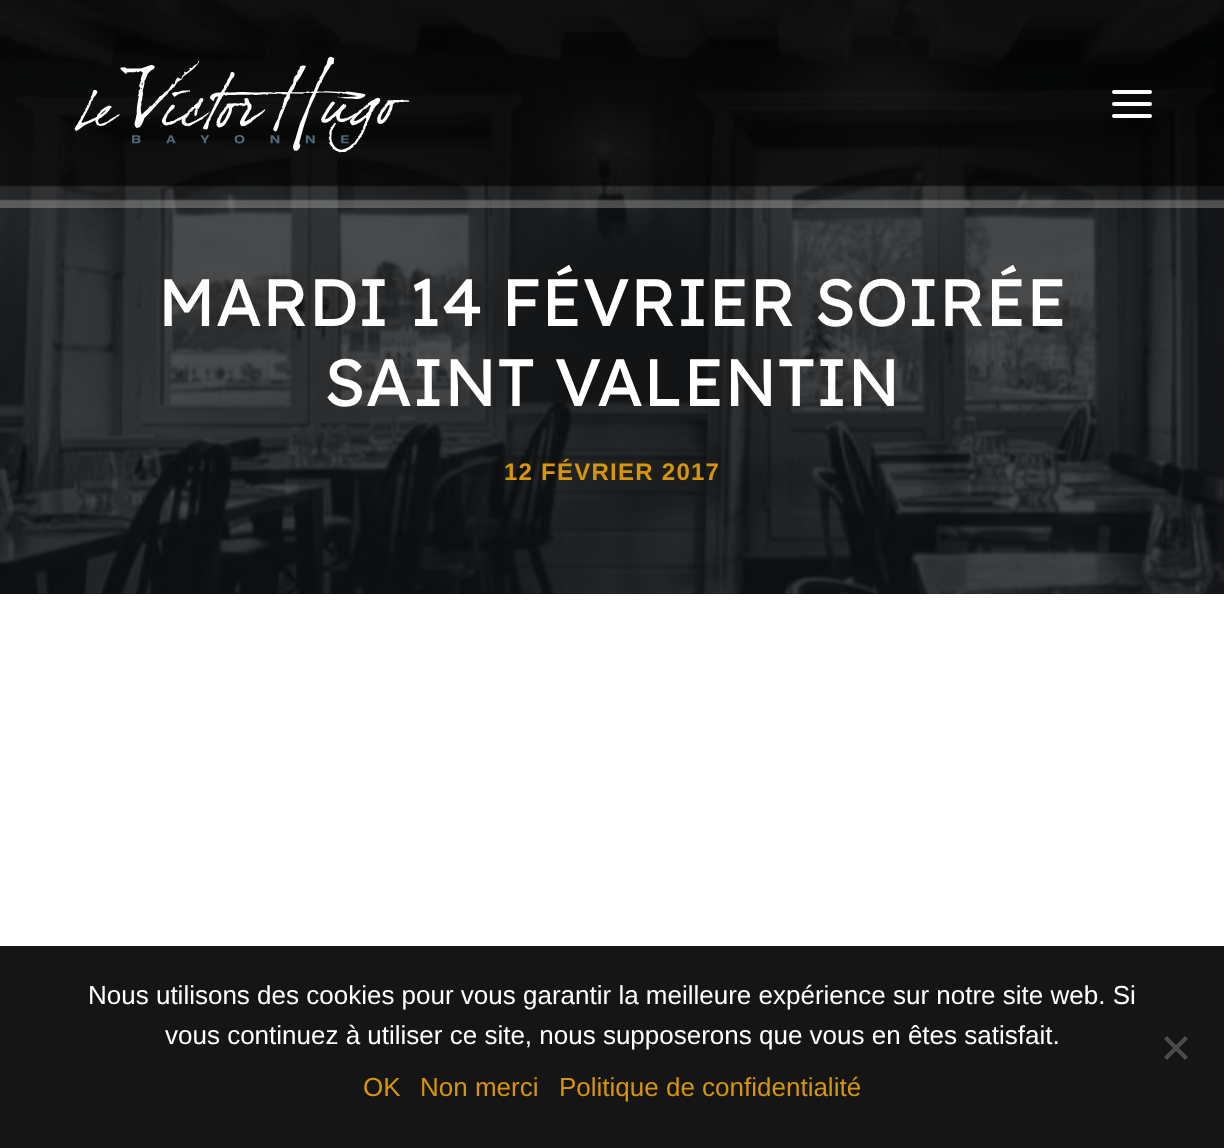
<svg xmlns="http://www.w3.org/2000/svg" width="1224" height="1148">
<rect width="100%" height="100%" fill="#141618"/>
<image x="0" y="0" width="1224" height="594" href="media/3.png"/>
<image x="0" y="0" width="1224" height="208" href="media/1.png"/>
<image x="74" y="56" width="336" height="97" href="media/2.png"/>
<rect x="1112" y="102" width="40" height="4" rx="2" fill="#fff"/>
<rect x="1112" y="90" width="40" height="4" rx="2" fill="#fff"/>
<rect x="1112" y="114" width="40" height="4" rx="2" fill="#fff"/>
<text x="158" y="326" style="font-family:Lexend Deca;font-size:66.7px;fill:#fff">MARDI 14 FÉVRIER SOIRÉE</text>
<text x="324" y="406" style="font-family:Lexend Deca;font-size:66.7px;fill:#fff">SAINT VALENTIN</text>
<text x="504" y="480" style="font-family:Liberation Sans;font-size:24px;font-weight:bold;letter-spacing:1.25px;fill:#d7960a">12 FÉVRIER 2017</text>
<rect y="594" width="1224" height="352" fill="#fff"/>
<rect y="946" width="1224" height="202" fill="#151515"/>
<text x="88" y="1004" style="font-family:Liberation Sans;font-size:26px;fill:#fff">Nous utilisons des cookies pour vous garantir la meilleure expérience sur notre site web. Si</text>
<text x="165" y="1044" style="font-family:Liberation Sans;font-size:26px;fill:#fff">vous continuez à utiliser ce site, nous supposerons que vous en êtes satisfait.</text>
<path d="M1185 1036l3 3l-21 21l-3-3z" fill="#4b4b4b"/>
<path d="M1164 1039l3-3l21 21l-3 3z" fill="#4b4b4b"/>
<text x="363" y="1096" style="font-family:Liberation Sans;font-size:26px;fill:#d7960a">OK</text>
<text x="420" y="1096" style="font-family:Liberation Sans;font-size:26px;fill:#d7960a">Non merci</text>
<text x="559" y="1096" style="font-family:Liberation Sans;font-size:26px;fill:#d7960a">Politique de confidentialité</text>
</svg>
